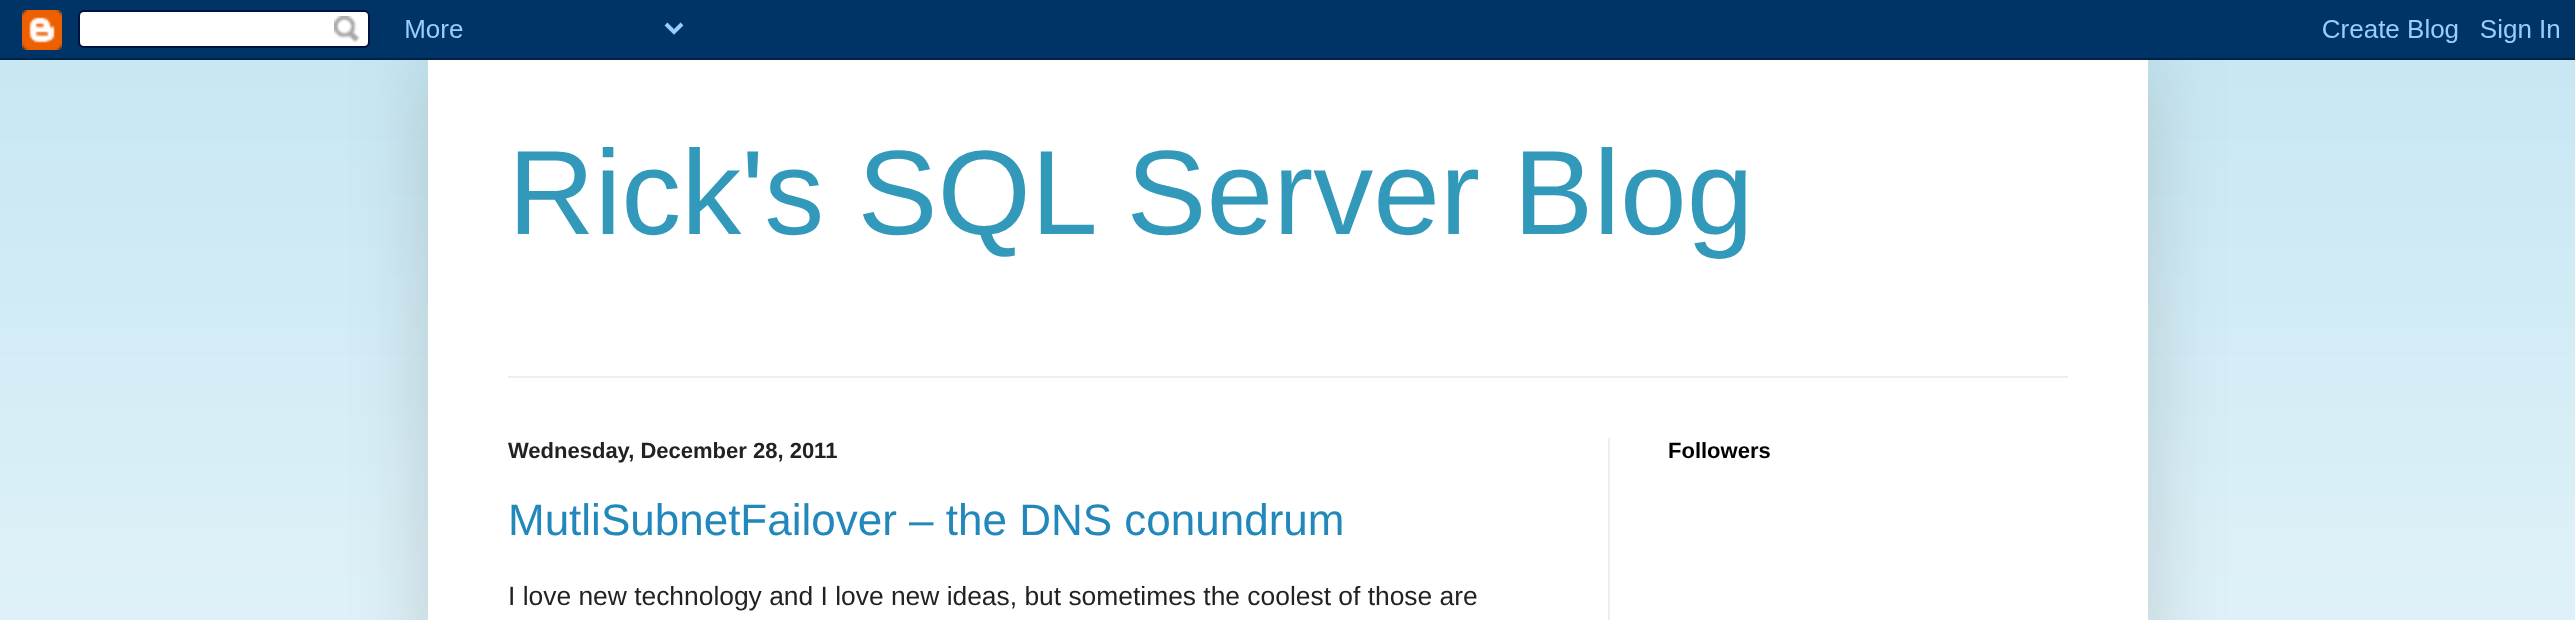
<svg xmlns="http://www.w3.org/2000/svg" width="2575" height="620">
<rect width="100%" height="100%" fill="#c2e5f2"/>
<image x="0" y="60" width="2575" height="560" href="media/2.png"/>
<rect x="428" y="60" width="1720" height="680" fill="#00000026" filter="blur(40px)"/>
<image x="0" y="0" width="2575" height="60" href="media/1.png"/>
<rect x="428" y="60" width="1720" height="560" fill="#fff"/>
<text x="508" y="234" style="font-family:Liberation Sans;font-size:120px;fill:#39b">Rick's SQL Server Blog</text>
<rect x="508" y="376" width="1560" height="2" fill="#eee"/>
<rect x="1608" y="438" width="2" height="182" fill="#eee"/>
<text x="508" y="458" style="font-family:Liberation Sans;font-size:22px;font-weight:bold;fill:#222">Wednesday, December 28, 2011</text>
<text x="508" y="535" style="font-family:Liberation Sans;font-size:44px;fill:#28b">MutliSubnetFailover – the DNS conundrum</text>
<text x="508" y="605" style="font-family:Liberation Sans;font-size:26.4px;fill:#222">I love new technology and I love new ideas, but sometimes the coolest of those are</text>
<text x="1668" y="458" style="font-family:Liberation Sans;font-size:22px;font-weight:bold;fill:#000">Followers</text>
</svg>
